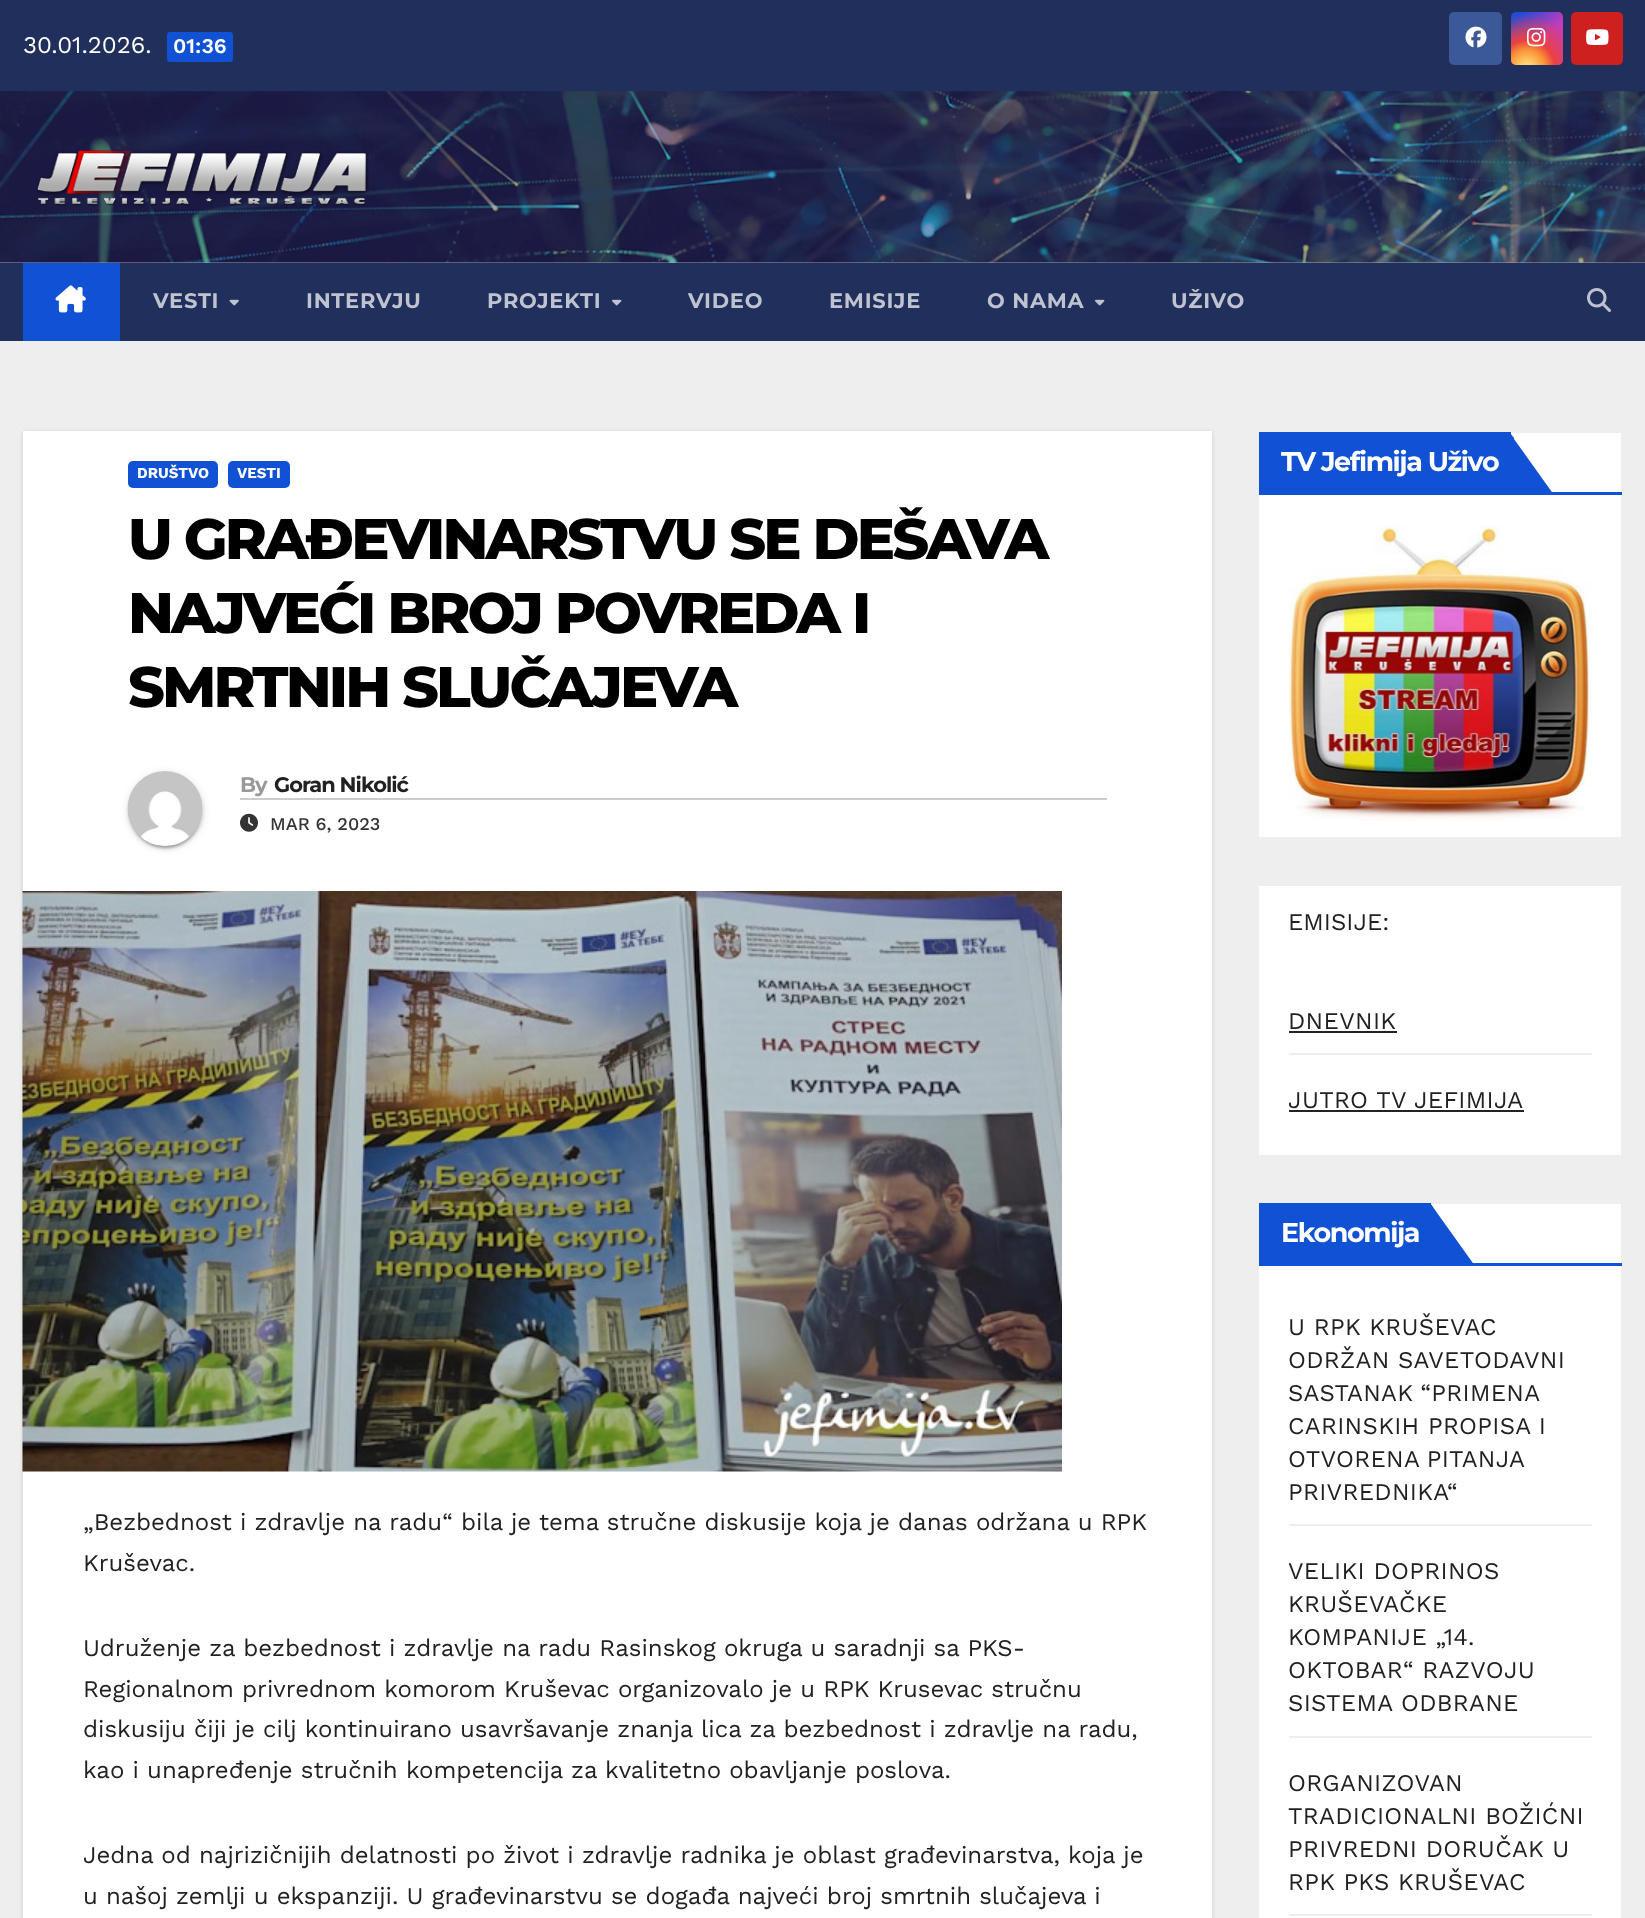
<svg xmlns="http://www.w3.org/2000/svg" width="1645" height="1918">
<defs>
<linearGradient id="g1" gradientUnits="userSpaceOnUse" x1="1511" y1="12" x2="1563" y2="65"><stop offset="0.12" stop-color="#234bd7"/><stop offset="0.58" stop-color="#c33cbe"/></linearGradient>
<radialGradient id="g2" gradientUnits="userSpaceOnUse" cx="1527" cy="68" r="66"><stop offset="0" stop-color="#ffe17d"/><stop offset="0.1" stop-color="#ffcd69"/><stop offset="0.28" stop-color="#fa9137"/><stop offset="0.42" stop-color="#eb4141"/><stop offset="0.82" stop-color="#eb4141" stop-opacity="0"/></radialGradient>
</defs>
<rect width="100%" height="100%" fill="#eee"/>
<rect y="262" width="1645" height="1" fill="#9ca2b3"/>
<rect width="1645" height="92" fill="#202f5b"/>
<text x="23" y="53" style="font-family:Work Sans;font-size:24px;fill:#fff">30.01.2026.</text>
<rect x="167" y="32" width="66" height="30" rx="3" fill="#1151d3"/>
<text x="173" y="53" style="font-family:Work Sans;font-size:21px;font-weight:600;fill:#fff">01:36</text>
<rect x="1449" y="12" width="53" height="53" rx="5" fill="#3b5998"/>
<image x="1465" y="26" width="22" height="22" href="media/1.png"/>
<rect x="1511" y="12" width="52" height="53" rx="5" fill="url(#g1)"/>
<rect x="1511" y="12" width="52" height="53" rx="5" fill="url(#g2)"/>
<image x="1527" y="27" width="19" height="20" href="media/2.png"/>
<rect x="1571" y="12" width="52" height="53" rx="5" fill="#cd201f"/>
<image x="1586" y="29" width="23" height="16" href="media/3.png"/>
<image x="0" y="91" width="1645" height="172" href="media/4.png"/>
<image x="36" y="150" width="333" height="56" href="media/5.png"/>
<rect y="263" width="1645" height="78" fill="#202f5b"/>
<rect x="23" y="263" width="97" height="78" fill="#1151d3"/>
<image x="55" y="285" width="31" height="28" href="media/6.png"/>
<text x="153" y="308" style="font-family:Montserrat;font-size:21px;font-weight:bold;letter-spacing:0.75px;fill:#bec3cf">VESTI</text>
<image x="229" y="299" width="10" height="7" href="media/7.png"/>
<text x="306" y="308" style="font-family:Montserrat;font-size:21px;font-weight:bold;letter-spacing:0.75px;fill:#bec3cf">INTERVJU</text>
<text x="487" y="308" style="font-family:Montserrat;font-size:21px;font-weight:bold;letter-spacing:0.75px;fill:#bec3cf">PROJEKTI</text>
<image x="612" y="299" width="10" height="7" href="media/8.png"/>
<text x="688" y="308" style="font-family:Montserrat;font-size:21px;font-weight:bold;letter-spacing:0.75px;fill:#bec3cf">VIDEO</text>
<text x="829" y="308" style="font-family:Montserrat;font-size:21px;font-weight:bold;letter-spacing:0.75px;fill:#bec3cf">EMISIJE</text>
<text x="987" y="308" style="font-family:Montserrat;font-size:21px;font-weight:bold;letter-spacing:0.75px;fill:#bec3cf">O NAMA</text>
<image x="1095" y="299" width="10" height="7" href="media/8.png"/>
<text x="1171" y="308" style="font-family:Montserrat;font-size:21px;font-weight:bold;letter-spacing:0.75px;fill:#bec3cf">UŽIVO</text>
<image x="1587" y="288" width="24" height="24" href="media/9.png"/>
<rect x="23" y="432" width="1189" height="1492" fill="#00000026" filter="blur(2px)"/>
<rect x="23" y="431" width="1189" height="1487" fill="#fff"/>
<rect x="128" y="461" width="90" height="27" rx="5" fill="#1151d3"/>
<text x="137" y="478" style="font-family:Work Sans;font-size:15px;font-weight:bold;fill:#fff">DRUŠTVO</text>
<rect x="228" y="461" width="62" height="27" rx="5" fill="#1151d3"/>
<text x="237" y="478" style="font-family:Work Sans;font-size:15px;font-weight:bold;fill:#fff">VESTI</text>
<text x="128" y="559" style="font-family:Montserrat;font-size:57px;font-weight:800;letter-spacing:-2.85px;fill:#000">U GRAĐEVINARSTVU SE DEŠAVA</text>
<text x="128" y="633" style="font-family:Montserrat;font-size:57px;font-weight:800;letter-spacing:-2.85px;fill:#000">NAJVEĆI BROJ POVREDA I</text>
<text x="128" y="707" style="font-family:Montserrat;font-size:57px;font-weight:800;letter-spacing:-2.85px;fill:#000">SMRTNIH SLUČAJEVA</text>
<rect x="128" y="773" width="75" height="75" rx="37.5" fill="#0000001f" filter="blur(4px)"/>
<rect x="131" y="779" width="69" height="69" rx="34.5" fill="#00000033" filter="blur(1px)"/>
<rect x="128" y="774" width="75" height="75" rx="37.5" fill="#00000024" filter="blur(1.5px)"/>
<image x="127" y="771" width="76" height="75" href="media/10.png"/>
<rect x="240" y="798" width="867" height="2" fill="#ccc"/>
<text x="240" y="792" style="font-family:Montserrat;font-size:21px;font-weight:bold;letter-spacing:-1px;fill:#999">By</text>
<text x="274" y="792" style="font-family:Montserrat;font-size:21px;font-weight:bold;letter-spacing:-1px;fill:#212121">Goran Nikolić</text>
<image x="240" y="813" width="18" height="19" href="media/11.png"/>
<text x="270" y="830" style="font-family:Work Sans;font-size:18px;font-weight:500;fill:#333">MAR 6, 2023</text>
<image x="22" y="891" width="1040" height="581" href="media/12.png"/>
<text x="83" y="1530" style="font-family:Work Sans;font-size:24px;fill:#212121">„Bezbednost i zdravlje na radu“ bila je tema stručne diskusije koja je danas održana u RPK</text>
<text x="83" y="1571" style="font-family:Work Sans;font-size:24px;fill:#212121">Kruševac.</text>
<text x="83" y="1656" style="font-family:Work Sans;font-size:24px;fill:#212121">Udruženje za bezbednost i zdravlje na radu Rasinskog okruga u saradnji sa PKS-</text>
<text x="83" y="1697" style="font-family:Work Sans;font-size:24px;fill:#212121">Regionalnom privrednom komorom Kruševac organizovalo je u RPK Krusevac stručnu</text>
<text x="83" y="1737" style="font-family:Work Sans;font-size:24px;fill:#212121">diskusiju čiji je cilj kontinuirano usavršavanje znanja lica za bezbednost i zdravlje na radu,</text>
<text x="83" y="1778" style="font-family:Work Sans;font-size:24px;fill:#212121">kao i unapređenje stručnih kompetencija za kvalitetno obavljanje poslova.</text>
<text x="83" y="1863" style="font-family:Work Sans;font-size:24px;fill:#212121">Jedna od najrizičnijih delatnosti po život i zdravlje radnika je oblast građevinarstva, koja je</text>
<text x="83" y="1904" style="font-family:Work Sans;font-size:24px;fill:#212121">u našoj zemlji u ekspanziji. U građevinarstvu se događa najveći broj smrtnih slučajeva i</text>
<rect x="1259" y="433" width="362" height="404" fill="#fff"/>
<rect x="1259" y="492" width="363" height="3" fill="#1151d3"/>
<rect x="1259" y="432" width="252" height="60" fill="#1151d3"/>
<text x="1281" y="471" style="font-family:Montserrat;font-size:27px;font-weight:bold;letter-spacing:-1.4px;fill:#fff">TV Jefimija Uživo</text>
<path d="M1509 432v63h45z" fill="#1151d3"/>
<path d="M1510 433l-1-1v63l5-5v-52z" fill="#1151d3"/>
<image x="1289" y="525" width="303" height="296" href="media/13.png"/>
<rect x="1259" y="886" width="362" height="269" fill="#fff"/>
<text x="1288" y="930" style="font-family:Work Sans;font-size:24px;fill:#212121">EMISIJE:</text>
<rect x="1289" y="1053" width="303" height="2" fill="#eee"/>
<text x="1288" y="1029" style="font-family:Work Sans;font-size:24px;letter-spacing:0.3px;fill:#212121">DNEVNIK</text>
<rect x="1289" y="1031" width="108" height="2" fill="#222"/>
<text x="1288" y="1108" style="font-family:Work Sans;font-size:24px;letter-spacing:0.3px;fill:#212121">JUTRO TV JEFIMIJA</text>
<rect x="1289" y="1110" width="235" height="2" fill="#222"/>
<rect x="1259" y="1204" width="362" height="714" fill="#fff"/>
<rect x="1259" y="1263" width="363" height="3" fill="#1151d3"/>
<rect x="1259" y="1203" width="172" height="60" fill="#1151d3"/>
<text x="1281" y="1242" style="font-family:Montserrat;font-size:27px;font-weight:bold;letter-spacing:-1.4px;fill:#fff">Ekonomija</text>
<path d="M1430 1203v63h45z" fill="#1151d3"/>
<path d="M1430 1203v63l4-4v-53z" fill="#1151d3"/>
<rect x="1289" y="1524" width="303" height="2" fill="#eee"/>
<text x="1288" y="1335" style="font-family:Work Sans;font-size:24px;letter-spacing:0.3px;fill:#212121">U RPK KRUŠEVAC</text>
<text x="1288" y="1368" style="font-family:Work Sans;font-size:24px;letter-spacing:0.3px;fill:#212121">ODRŽAN SAVETODAVNI</text>
<text x="1288" y="1401" word-spacing="-1" style="font-family:Work Sans;font-size:24px;letter-spacing:0.3px;fill:#212121">SASTANAK “PRIMENA</text>
<text x="1288" y="1434" style="font-family:Work Sans;font-size:24px;letter-spacing:0.3px;fill:#212121">CARINSKIH PROPISA I</text>
<text x="1288" y="1467" word-spacing="-1" style="font-family:Work Sans;font-size:24px;letter-spacing:0.3px;fill:#212121">OTVORENA PITANJA</text>
<text x="1288" y="1500" style="font-family:Work Sans;font-size:24px;letter-spacing:0.3px;fill:#212121">PRIVREDNIKA“</text>
<rect x="1289" y="1736" width="303" height="2" fill="#eee"/>
<text x="1288" y="1579" style="font-family:Work Sans;font-size:24px;letter-spacing:0.3px;fill:#212121">VELIKI DOPRINOS</text>
<text x="1288" y="1612" style="font-family:Work Sans;font-size:24px;letter-spacing:0.3px;fill:#212121">KRUŠEVAČKE</text>
<text x="1288" y="1645" style="font-family:Work Sans;font-size:24px;letter-spacing:0.3px;fill:#212121">KOMPANIJE „14.</text>
<text x="1288" y="1678" style="font-family:Work Sans;font-size:24px;letter-spacing:0.3px;fill:#212121">OKTOBAR“ RAZVOJU</text>
<text x="1288" y="1711" style="font-family:Work Sans;font-size:24px;letter-spacing:0.3px;fill:#212121">SISTEMA ODBRANE</text>
<rect x="1289" y="1914" width="303" height="2" fill="#eee"/>
<text x="1288" y="1791" style="font-family:Work Sans;font-size:24px;letter-spacing:0.3px;fill:#212121">ORGANIZOVAN</text>
<text x="1288" y="1824" style="font-family:Work Sans;font-size:24px;letter-spacing:0.3px;fill:#212121">TRADICIONALNI BOŽIĆNI</text>
<text x="1288" y="1857" style="font-family:Work Sans;font-size:24px;letter-spacing:0.3px;fill:#212121">PRIVREDNI DORUČAK U</text>
<text x="1288" y="1890" style="font-family:Work Sans;font-size:24px;letter-spacing:0.3px;fill:#212121">RPK PKS KRUŠEVAC</text>
</svg>
